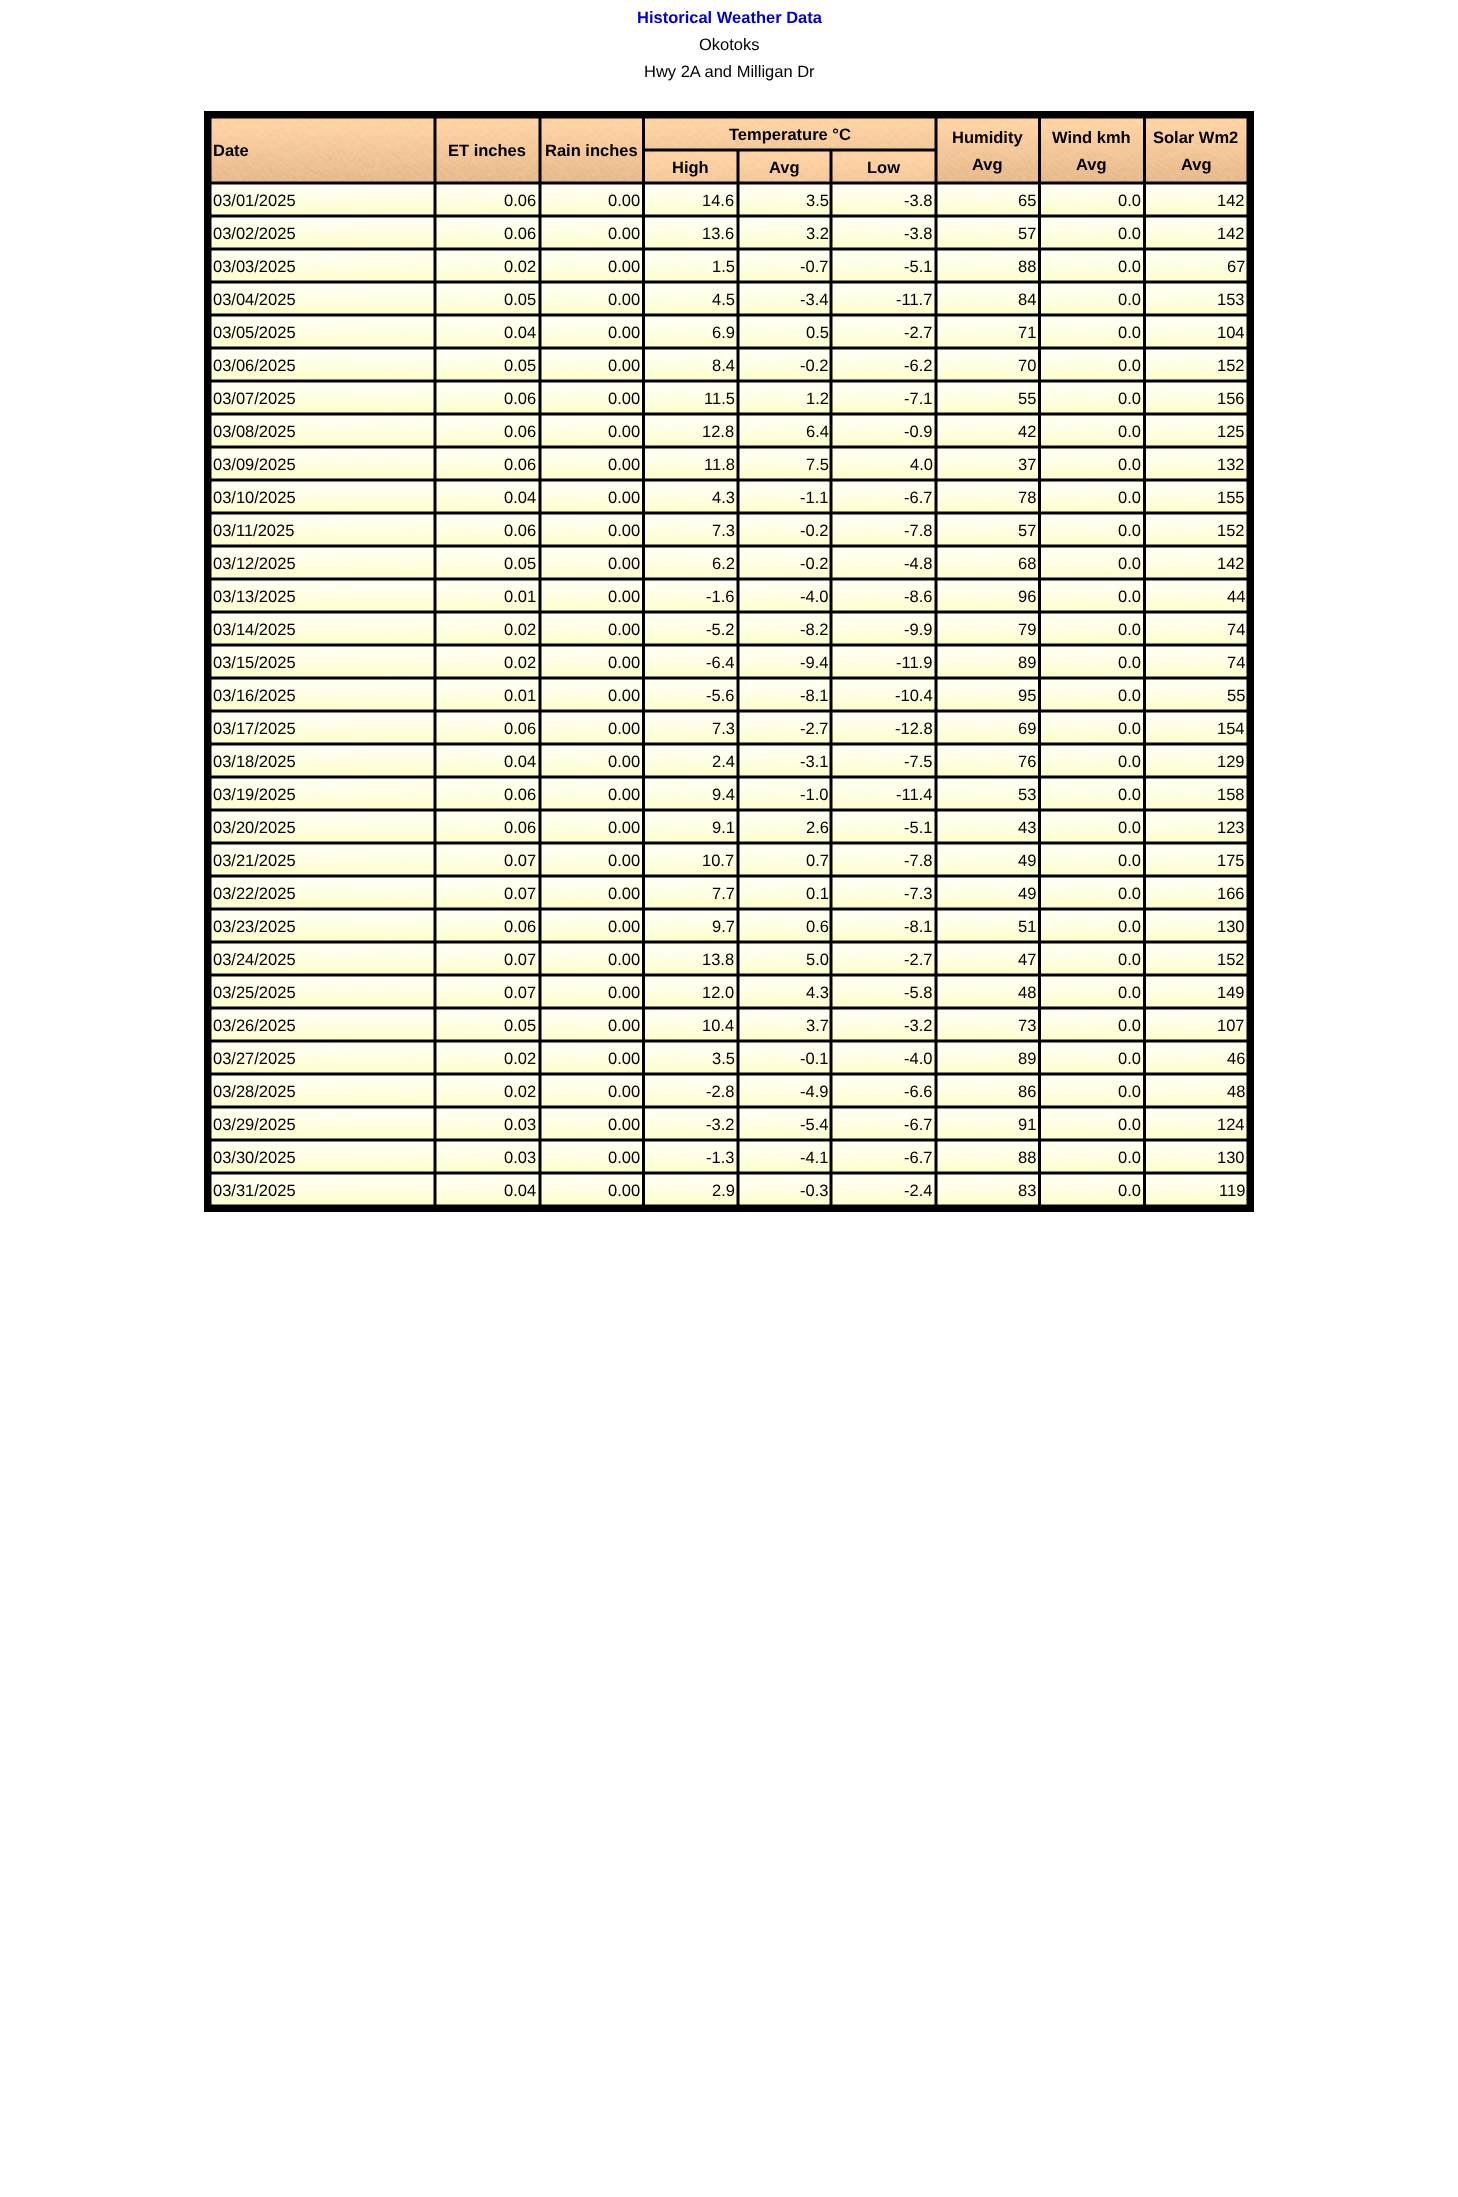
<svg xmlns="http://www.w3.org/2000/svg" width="1458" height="2197">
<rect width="100%" height="100%" fill="#fff"/>
<text x="637" y="23" style="font-family:Liberation Sans;font-size:16.5px;font-weight:bold;fill:#00c">Historical Weather Data</text>
<text x="699" y="50" style="font-family:Liberation Sans;font-size:16.5px;fill:#000">Okotoks</text>
<text x="644" y="77" style="font-family:Liberation Sans;font-size:16.5px;fill:#000">Hwy 2A and Milligan Dr</text>
<rect x="204" y="111" width="1050" height="1101" fill="#000"/>
<image x="211" y="118" width="223" height="64" href="media/1.png"/>
<text x="213" y="156" style="font-family:Liberation Sans;font-size:16.5px;font-weight:bold;fill:#000">Date</text>
<image x="436" y="118" width="103" height="64" href="media/2.png"/>
<text x="448" y="156" style="font-family:Liberation Sans;font-size:16.5px;font-weight:bold;fill:#000">ET inches</text>
<image x="541" y="118" width="101" height="64" href="media/3.png"/>
<text x="545" y="156" style="font-family:Liberation Sans;font-size:16.5px;font-weight:bold;fill:#000">Rain inches</text>
<image x="645" y="118" width="290" height="31" href="media/4.png"/>
<text x="729" y="140" style="font-family:Liberation Sans;font-size:16.5px;font-weight:bold;fill:#000">Temperature °C</text>
<image x="937" y="118" width="101" height="64" href="media/3.png"/>
<text x="952" y="143" style="font-family:Liberation Sans;font-size:16.5px;font-weight:bold;fill:#000">Humidity</text>
<text x="972" y="170" style="font-family:Liberation Sans;font-size:16.5px;font-weight:bold;fill:#000">Avg</text>
<image x="1041" y="118" width="102" height="64" href="media/5.png"/>
<text x="1052" y="143" style="font-family:Liberation Sans;font-size:16.5px;font-weight:bold;fill:#000">Wind kmh</text>
<text x="1076" y="170" style="font-family:Liberation Sans;font-size:16.5px;font-weight:bold;fill:#000">Avg</text>
<image x="1146" y="118" width="101" height="64" href="media/6.png"/>
<text x="1153" y="143" style="font-family:Liberation Sans;font-size:16.5px;font-weight:bold;fill:#000">Solar Wm2</text>
<text x="1181" y="170" style="font-family:Liberation Sans;font-size:16.5px;font-weight:bold;fill:#000">Avg</text>
<image x="645" y="151" width="92" height="31" href="media/7.png"/>
<text x="672" y="173" style="font-family:Liberation Sans;font-size:16.5px;font-weight:bold;fill:#000">High</text>
<image x="739" y="151" width="91" height="31" href="media/8.png"/>
<text x="769" y="173" style="font-family:Liberation Sans;font-size:16.5px;font-weight:bold;fill:#000">Avg</text>
<image x="832" y="151" width="103" height="31" href="media/9.png"/>
<text x="867" y="173" style="font-family:Liberation Sans;font-size:16.5px;font-weight:bold;fill:#000">Low</text>
<image x="211" y="184" width="223" height="31" href="media/10.png"/>
<text x="213" y="206" style="font-family:Liberation Sans;font-size:16.5px;fill:#000">03/01/2025</text>
<image x="436" y="184" width="103" height="31" href="media/11.png"/>
<text x="504" y="206" style="font-family:Liberation Sans;font-size:16.5px;fill:#000">0.06</text>
<image x="541" y="184" width="101" height="31" href="media/12.png"/>
<text x="608" y="206" style="font-family:Liberation Sans;font-size:16.5px;fill:#000">0.00</text>
<image x="645" y="184" width="92" height="31" href="media/13.png"/>
<text x="702" y="206" style="font-family:Liberation Sans;font-size:16.5px;fill:#000">14.6</text>
<image x="739" y="184" width="91" height="31" href="media/14.png"/>
<text x="806" y="206" style="font-family:Liberation Sans;font-size:16.5px;fill:#000">3.5</text>
<image x="832" y="184" width="103" height="31" href="media/11.png"/>
<text x="904" y="206" style="font-family:Liberation Sans;font-size:16.5px;fill:#000">-3.8</text>
<image x="937" y="184" width="101" height="31" href="media/12.png"/>
<text x="1018" y="206" style="font-family:Liberation Sans;font-size:16.5px;fill:#000">65</text>
<image x="1041" y="184" width="102" height="31" href="media/15.png"/>
<text x="1118" y="206" style="font-family:Liberation Sans;font-size:16.5px;fill:#000">0.0</text>
<image x="1146" y="184" width="101" height="31" href="media/16.png"/>
<text x="1217" y="206" style="font-family:Liberation Sans;font-size:16.5px;fill:#000">142</text>
<image x="211" y="217" width="223" height="31" href="media/10.png"/>
<text x="213" y="239" style="font-family:Liberation Sans;font-size:16.5px;fill:#000">03/02/2025</text>
<image x="436" y="217" width="103" height="31" href="media/11.png"/>
<text x="504" y="239" style="font-family:Liberation Sans;font-size:16.5px;fill:#000">0.06</text>
<image x="541" y="217" width="101" height="31" href="media/12.png"/>
<text x="608" y="239" style="font-family:Liberation Sans;font-size:16.5px;fill:#000">0.00</text>
<image x="645" y="217" width="92" height="31" href="media/13.png"/>
<text x="702" y="239" style="font-family:Liberation Sans;font-size:16.5px;fill:#000">13.6</text>
<image x="739" y="217" width="91" height="31" href="media/14.png"/>
<text x="806" y="239" style="font-family:Liberation Sans;font-size:16.5px;fill:#000">3.2</text>
<image x="832" y="217" width="103" height="31" href="media/11.png"/>
<text x="904" y="239" style="font-family:Liberation Sans;font-size:16.5px;fill:#000">-3.8</text>
<image x="937" y="217" width="101" height="31" href="media/12.png"/>
<text x="1018" y="239" style="font-family:Liberation Sans;font-size:16.5px;fill:#000">57</text>
<image x="1041" y="217" width="102" height="31" href="media/15.png"/>
<text x="1118" y="239" style="font-family:Liberation Sans;font-size:16.5px;fill:#000">0.0</text>
<image x="1146" y="217" width="101" height="31" href="media/16.png"/>
<text x="1217" y="239" style="font-family:Liberation Sans;font-size:16.5px;fill:#000">142</text>
<image x="211" y="250" width="223" height="31" href="media/10.png"/>
<text x="213" y="272" style="font-family:Liberation Sans;font-size:16.5px;fill:#000">03/03/2025</text>
<image x="436" y="250" width="103" height="31" href="media/11.png"/>
<text x="504" y="272" style="font-family:Liberation Sans;font-size:16.5px;fill:#000">0.02</text>
<image x="541" y="250" width="101" height="31" href="media/12.png"/>
<text x="608" y="272" style="font-family:Liberation Sans;font-size:16.5px;fill:#000">0.00</text>
<image x="645" y="250" width="92" height="31" href="media/13.png"/>
<text x="712" y="272" style="font-family:Liberation Sans;font-size:16.5px;fill:#000">1.5</text>
<image x="739" y="250" width="91" height="31" href="media/14.png"/>
<text x="800" y="272" style="font-family:Liberation Sans;font-size:16.5px;fill:#000">-0.7</text>
<image x="832" y="250" width="103" height="31" href="media/11.png"/>
<text x="904" y="272" style="font-family:Liberation Sans;font-size:16.5px;fill:#000">-5.1</text>
<image x="937" y="250" width="101" height="31" href="media/12.png"/>
<text x="1018" y="272" style="font-family:Liberation Sans;font-size:16.5px;fill:#000">88</text>
<image x="1041" y="250" width="102" height="31" href="media/15.png"/>
<text x="1118" y="272" style="font-family:Liberation Sans;font-size:16.5px;fill:#000">0.0</text>
<image x="1146" y="250" width="101" height="31" href="media/16.png"/>
<text x="1227" y="272" style="font-family:Liberation Sans;font-size:16.5px;fill:#000">67</text>
<image x="211" y="283" width="223" height="31" href="media/10.png"/>
<text x="213" y="305" style="font-family:Liberation Sans;font-size:16.5px;fill:#000">03/04/2025</text>
<image x="436" y="283" width="103" height="31" href="media/11.png"/>
<text x="504" y="305" style="font-family:Liberation Sans;font-size:16.5px;fill:#000">0.05</text>
<image x="541" y="283" width="101" height="31" href="media/12.png"/>
<text x="608" y="305" style="font-family:Liberation Sans;font-size:16.5px;fill:#000">0.00</text>
<image x="645" y="283" width="92" height="31" href="media/13.png"/>
<text x="712" y="305" style="font-family:Liberation Sans;font-size:16.5px;fill:#000">4.5</text>
<image x="739" y="283" width="91" height="31" href="media/14.png"/>
<text x="800" y="305" style="font-family:Liberation Sans;font-size:16.5px;fill:#000">-3.4</text>
<image x="832" y="283" width="103" height="31" href="media/11.png"/>
<text x="896" y="305" style="font-family:Liberation Sans;font-size:16.5px;fill:#000">-11.7</text>
<image x="937" y="283" width="101" height="31" href="media/12.png"/>
<text x="1018" y="305" style="font-family:Liberation Sans;font-size:16.5px;fill:#000">84</text>
<image x="1041" y="283" width="102" height="31" href="media/15.png"/>
<text x="1118" y="305" style="font-family:Liberation Sans;font-size:16.5px;fill:#000">0.0</text>
<image x="1146" y="283" width="101" height="31" href="media/16.png"/>
<text x="1217" y="305" style="font-family:Liberation Sans;font-size:16.5px;fill:#000">153</text>
<image x="211" y="316" width="223" height="31" href="media/10.png"/>
<text x="213" y="338" style="font-family:Liberation Sans;font-size:16.5px;fill:#000">03/05/2025</text>
<image x="436" y="316" width="103" height="31" href="media/11.png"/>
<text x="504" y="338" style="font-family:Liberation Sans;font-size:16.5px;fill:#000">0.04</text>
<image x="541" y="316" width="101" height="31" href="media/12.png"/>
<text x="608" y="338" style="font-family:Liberation Sans;font-size:16.5px;fill:#000">0.00</text>
<image x="645" y="316" width="92" height="31" href="media/13.png"/>
<text x="712" y="338" style="font-family:Liberation Sans;font-size:16.5px;fill:#000">6.9</text>
<image x="739" y="316" width="91" height="31" href="media/14.png"/>
<text x="806" y="338" style="font-family:Liberation Sans;font-size:16.5px;fill:#000">0.5</text>
<image x="832" y="316" width="103" height="31" href="media/11.png"/>
<text x="904" y="338" style="font-family:Liberation Sans;font-size:16.5px;fill:#000">-2.7</text>
<image x="937" y="316" width="101" height="31" href="media/12.png"/>
<text x="1018" y="338" style="font-family:Liberation Sans;font-size:16.5px;fill:#000">71</text>
<image x="1041" y="316" width="102" height="31" href="media/15.png"/>
<text x="1118" y="338" style="font-family:Liberation Sans;font-size:16.5px;fill:#000">0.0</text>
<image x="1146" y="316" width="101" height="31" href="media/16.png"/>
<text x="1217" y="338" style="font-family:Liberation Sans;font-size:16.5px;fill:#000">104</text>
<image x="211" y="349" width="223" height="31" href="media/10.png"/>
<text x="213" y="371" style="font-family:Liberation Sans;font-size:16.5px;fill:#000">03/06/2025</text>
<image x="436" y="349" width="103" height="31" href="media/11.png"/>
<text x="504" y="371" style="font-family:Liberation Sans;font-size:16.5px;fill:#000">0.05</text>
<image x="541" y="349" width="101" height="31" href="media/12.png"/>
<text x="608" y="371" style="font-family:Liberation Sans;font-size:16.5px;fill:#000">0.00</text>
<image x="645" y="349" width="92" height="31" href="media/13.png"/>
<text x="712" y="371" style="font-family:Liberation Sans;font-size:16.5px;fill:#000">8.4</text>
<image x="739" y="349" width="91" height="31" href="media/14.png"/>
<text x="800" y="371" style="font-family:Liberation Sans;font-size:16.5px;fill:#000">-0.2</text>
<image x="832" y="349" width="103" height="31" href="media/11.png"/>
<text x="904" y="371" style="font-family:Liberation Sans;font-size:16.5px;fill:#000">-6.2</text>
<image x="937" y="349" width="101" height="31" href="media/12.png"/>
<text x="1018" y="371" style="font-family:Liberation Sans;font-size:16.5px;fill:#000">70</text>
<image x="1041" y="349" width="102" height="31" href="media/15.png"/>
<text x="1118" y="371" style="font-family:Liberation Sans;font-size:16.5px;fill:#000">0.0</text>
<image x="1146" y="349" width="101" height="31" href="media/16.png"/>
<text x="1217" y="371" style="font-family:Liberation Sans;font-size:16.5px;fill:#000">152</text>
<image x="211" y="382" width="223" height="31" href="media/10.png"/>
<text x="213" y="404" style="font-family:Liberation Sans;font-size:16.5px;fill:#000">03/07/2025</text>
<image x="436" y="382" width="103" height="31" href="media/11.png"/>
<text x="504" y="404" style="font-family:Liberation Sans;font-size:16.5px;fill:#000">0.06</text>
<image x="541" y="382" width="101" height="31" href="media/12.png"/>
<text x="608" y="404" style="font-family:Liberation Sans;font-size:16.5px;fill:#000">0.00</text>
<image x="645" y="382" width="92" height="31" href="media/13.png"/>
<text x="704" y="404" style="font-family:Liberation Sans;font-size:16.5px;fill:#000">11.5</text>
<image x="739" y="382" width="91" height="31" href="media/14.png"/>
<text x="806" y="404" style="font-family:Liberation Sans;font-size:16.5px;fill:#000">1.2</text>
<image x="832" y="382" width="103" height="31" href="media/11.png"/>
<text x="904" y="404" style="font-family:Liberation Sans;font-size:16.5px;fill:#000">-7.1</text>
<image x="937" y="382" width="101" height="31" href="media/12.png"/>
<text x="1018" y="404" style="font-family:Liberation Sans;font-size:16.5px;fill:#000">55</text>
<image x="1041" y="382" width="102" height="31" href="media/15.png"/>
<text x="1118" y="404" style="font-family:Liberation Sans;font-size:16.5px;fill:#000">0.0</text>
<image x="1146" y="382" width="101" height="31" href="media/16.png"/>
<text x="1217" y="404" style="font-family:Liberation Sans;font-size:16.5px;fill:#000">156</text>
<image x="211" y="415" width="223" height="31" href="media/10.png"/>
<text x="213" y="437" style="font-family:Liberation Sans;font-size:16.5px;fill:#000">03/08/2025</text>
<image x="436" y="415" width="103" height="31" href="media/11.png"/>
<text x="504" y="437" style="font-family:Liberation Sans;font-size:16.5px;fill:#000">0.06</text>
<image x="541" y="415" width="101" height="31" href="media/12.png"/>
<text x="608" y="437" style="font-family:Liberation Sans;font-size:16.5px;fill:#000">0.00</text>
<image x="645" y="415" width="92" height="31" href="media/13.png"/>
<text x="702" y="437" style="font-family:Liberation Sans;font-size:16.5px;fill:#000">12.8</text>
<image x="739" y="415" width="91" height="31" href="media/14.png"/>
<text x="806" y="437" style="font-family:Liberation Sans;font-size:16.5px;fill:#000">6.4</text>
<image x="832" y="415" width="103" height="31" href="media/11.png"/>
<text x="904" y="437" style="font-family:Liberation Sans;font-size:16.5px;fill:#000">-0.9</text>
<image x="937" y="415" width="101" height="31" href="media/12.png"/>
<text x="1018" y="437" style="font-family:Liberation Sans;font-size:16.5px;fill:#000">42</text>
<image x="1041" y="415" width="102" height="31" href="media/15.png"/>
<text x="1118" y="437" style="font-family:Liberation Sans;font-size:16.5px;fill:#000">0.0</text>
<image x="1146" y="415" width="101" height="31" href="media/16.png"/>
<text x="1217" y="437" style="font-family:Liberation Sans;font-size:16.5px;fill:#000">125</text>
<image x="211" y="448" width="223" height="31" href="media/10.png"/>
<text x="213" y="470" style="font-family:Liberation Sans;font-size:16.5px;fill:#000">03/09/2025</text>
<image x="436" y="448" width="103" height="31" href="media/11.png"/>
<text x="504" y="470" style="font-family:Liberation Sans;font-size:16.5px;fill:#000">0.06</text>
<image x="541" y="448" width="101" height="31" href="media/12.png"/>
<text x="608" y="470" style="font-family:Liberation Sans;font-size:16.5px;fill:#000">0.00</text>
<image x="645" y="448" width="92" height="31" href="media/13.png"/>
<text x="704" y="470" style="font-family:Liberation Sans;font-size:16.5px;fill:#000">11.8</text>
<image x="739" y="448" width="91" height="31" href="media/14.png"/>
<text x="806" y="470" style="font-family:Liberation Sans;font-size:16.5px;fill:#000">7.5</text>
<image x="832" y="448" width="103" height="31" href="media/11.png"/>
<text x="910" y="470" style="font-family:Liberation Sans;font-size:16.5px;fill:#000">4.0</text>
<image x="937" y="448" width="101" height="31" href="media/12.png"/>
<text x="1018" y="470" style="font-family:Liberation Sans;font-size:16.5px;fill:#000">37</text>
<image x="1041" y="448" width="102" height="31" href="media/15.png"/>
<text x="1118" y="470" style="font-family:Liberation Sans;font-size:16.5px;fill:#000">0.0</text>
<image x="1146" y="448" width="101" height="31" href="media/16.png"/>
<text x="1217" y="470" style="font-family:Liberation Sans;font-size:16.5px;fill:#000">132</text>
<image x="211" y="481" width="223" height="31" href="media/10.png"/>
<text x="213" y="503" style="font-family:Liberation Sans;font-size:16.5px;fill:#000">03/10/2025</text>
<image x="436" y="481" width="103" height="31" href="media/11.png"/>
<text x="504" y="503" style="font-family:Liberation Sans;font-size:16.5px;fill:#000">0.04</text>
<image x="541" y="481" width="101" height="31" href="media/12.png"/>
<text x="608" y="503" style="font-family:Liberation Sans;font-size:16.5px;fill:#000">0.00</text>
<image x="645" y="481" width="92" height="31" href="media/13.png"/>
<text x="712" y="503" style="font-family:Liberation Sans;font-size:16.5px;fill:#000">4.3</text>
<image x="739" y="481" width="91" height="31" href="media/14.png"/>
<text x="800" y="503" style="font-family:Liberation Sans;font-size:16.5px;fill:#000">-1.1</text>
<image x="832" y="481" width="103" height="31" href="media/11.png"/>
<text x="904" y="503" style="font-family:Liberation Sans;font-size:16.5px;fill:#000">-6.7</text>
<image x="937" y="481" width="101" height="31" href="media/12.png"/>
<text x="1018" y="503" style="font-family:Liberation Sans;font-size:16.5px;fill:#000">78</text>
<image x="1041" y="481" width="102" height="31" href="media/15.png"/>
<text x="1118" y="503" style="font-family:Liberation Sans;font-size:16.5px;fill:#000">0.0</text>
<image x="1146" y="481" width="101" height="31" href="media/16.png"/>
<text x="1217" y="503" style="font-family:Liberation Sans;font-size:16.5px;fill:#000">155</text>
<image x="211" y="514" width="223" height="31" href="media/10.png"/>
<text x="213" y="536" style="font-family:Liberation Sans;font-size:16.5px;fill:#000">03/11/2025</text>
<image x="436" y="514" width="103" height="31" href="media/11.png"/>
<text x="504" y="536" style="font-family:Liberation Sans;font-size:16.5px;fill:#000">0.06</text>
<image x="541" y="514" width="101" height="31" href="media/12.png"/>
<text x="608" y="536" style="font-family:Liberation Sans;font-size:16.5px;fill:#000">0.00</text>
<image x="645" y="514" width="92" height="31" href="media/13.png"/>
<text x="712" y="536" style="font-family:Liberation Sans;font-size:16.5px;fill:#000">7.3</text>
<image x="739" y="514" width="91" height="31" href="media/14.png"/>
<text x="800" y="536" style="font-family:Liberation Sans;font-size:16.5px;fill:#000">-0.2</text>
<image x="832" y="514" width="103" height="31" href="media/11.png"/>
<text x="904" y="536" style="font-family:Liberation Sans;font-size:16.5px;fill:#000">-7.8</text>
<image x="937" y="514" width="101" height="31" href="media/12.png"/>
<text x="1018" y="536" style="font-family:Liberation Sans;font-size:16.5px;fill:#000">57</text>
<image x="1041" y="514" width="102" height="31" href="media/15.png"/>
<text x="1118" y="536" style="font-family:Liberation Sans;font-size:16.5px;fill:#000">0.0</text>
<image x="1146" y="514" width="101" height="31" href="media/16.png"/>
<text x="1217" y="536" style="font-family:Liberation Sans;font-size:16.5px;fill:#000">152</text>
<image x="211" y="547" width="223" height="31" href="media/10.png"/>
<text x="213" y="569" style="font-family:Liberation Sans;font-size:16.5px;fill:#000">03/12/2025</text>
<image x="436" y="547" width="103" height="31" href="media/11.png"/>
<text x="504" y="569" style="font-family:Liberation Sans;font-size:16.5px;fill:#000">0.05</text>
<image x="541" y="547" width="101" height="31" href="media/12.png"/>
<text x="608" y="569" style="font-family:Liberation Sans;font-size:16.5px;fill:#000">0.00</text>
<image x="645" y="547" width="92" height="31" href="media/13.png"/>
<text x="712" y="569" style="font-family:Liberation Sans;font-size:16.5px;fill:#000">6.2</text>
<image x="739" y="547" width="91" height="31" href="media/14.png"/>
<text x="800" y="569" style="font-family:Liberation Sans;font-size:16.5px;fill:#000">-0.2</text>
<image x="832" y="547" width="103" height="31" href="media/11.png"/>
<text x="904" y="569" style="font-family:Liberation Sans;font-size:16.5px;fill:#000">-4.8</text>
<image x="937" y="547" width="101" height="31" href="media/12.png"/>
<text x="1018" y="569" style="font-family:Liberation Sans;font-size:16.5px;fill:#000">68</text>
<image x="1041" y="547" width="102" height="31" href="media/15.png"/>
<text x="1118" y="569" style="font-family:Liberation Sans;font-size:16.5px;fill:#000">0.0</text>
<image x="1146" y="547" width="101" height="31" href="media/16.png"/>
<text x="1217" y="569" style="font-family:Liberation Sans;font-size:16.5px;fill:#000">142</text>
<image x="211" y="580" width="223" height="31" href="media/10.png"/>
<text x="213" y="602" style="font-family:Liberation Sans;font-size:16.5px;fill:#000">03/13/2025</text>
<image x="436" y="580" width="103" height="31" href="media/11.png"/>
<text x="504" y="602" style="font-family:Liberation Sans;font-size:16.5px;fill:#000">0.01</text>
<image x="541" y="580" width="101" height="31" href="media/12.png"/>
<text x="608" y="602" style="font-family:Liberation Sans;font-size:16.5px;fill:#000">0.00</text>
<image x="645" y="580" width="92" height="31" href="media/13.png"/>
<text x="706" y="602" style="font-family:Liberation Sans;font-size:16.5px;fill:#000">-1.6</text>
<image x="739" y="580" width="91" height="31" href="media/14.png"/>
<text x="800" y="602" style="font-family:Liberation Sans;font-size:16.5px;fill:#000">-4.0</text>
<image x="832" y="580" width="103" height="31" href="media/11.png"/>
<text x="904" y="602" style="font-family:Liberation Sans;font-size:16.5px;fill:#000">-8.6</text>
<image x="937" y="580" width="101" height="31" href="media/12.png"/>
<text x="1018" y="602" style="font-family:Liberation Sans;font-size:16.5px;fill:#000">96</text>
<image x="1041" y="580" width="102" height="31" href="media/15.png"/>
<text x="1118" y="602" style="font-family:Liberation Sans;font-size:16.5px;fill:#000">0.0</text>
<image x="1146" y="580" width="101" height="31" href="media/16.png"/>
<text x="1227" y="602" style="font-family:Liberation Sans;font-size:16.5px;fill:#000">44</text>
<image x="211" y="613" width="223" height="31" href="media/10.png"/>
<text x="213" y="635" style="font-family:Liberation Sans;font-size:16.5px;fill:#000">03/14/2025</text>
<image x="436" y="613" width="103" height="31" href="media/11.png"/>
<text x="504" y="635" style="font-family:Liberation Sans;font-size:16.5px;fill:#000">0.02</text>
<image x="541" y="613" width="101" height="31" href="media/12.png"/>
<text x="608" y="635" style="font-family:Liberation Sans;font-size:16.5px;fill:#000">0.00</text>
<image x="645" y="613" width="92" height="31" href="media/13.png"/>
<text x="706" y="635" style="font-family:Liberation Sans;font-size:16.5px;fill:#000">-5.2</text>
<image x="739" y="613" width="91" height="31" href="media/14.png"/>
<text x="800" y="635" style="font-family:Liberation Sans;font-size:16.5px;fill:#000">-8.2</text>
<image x="832" y="613" width="103" height="31" href="media/11.png"/>
<text x="904" y="635" style="font-family:Liberation Sans;font-size:16.5px;fill:#000">-9.9</text>
<image x="937" y="613" width="101" height="31" href="media/12.png"/>
<text x="1018" y="635" style="font-family:Liberation Sans;font-size:16.5px;fill:#000">79</text>
<image x="1041" y="613" width="102" height="31" href="media/15.png"/>
<text x="1118" y="635" style="font-family:Liberation Sans;font-size:16.5px;fill:#000">0.0</text>
<image x="1146" y="613" width="101" height="31" href="media/16.png"/>
<text x="1227" y="635" style="font-family:Liberation Sans;font-size:16.5px;fill:#000">74</text>
<image x="211" y="646" width="223" height="31" href="media/10.png"/>
<text x="213" y="668" style="font-family:Liberation Sans;font-size:16.5px;fill:#000">03/15/2025</text>
<image x="436" y="646" width="103" height="31" href="media/11.png"/>
<text x="504" y="668" style="font-family:Liberation Sans;font-size:16.5px;fill:#000">0.02</text>
<image x="541" y="646" width="101" height="31" href="media/12.png"/>
<text x="608" y="668" style="font-family:Liberation Sans;font-size:16.5px;fill:#000">0.00</text>
<image x="645" y="646" width="92" height="31" href="media/13.png"/>
<text x="706" y="668" style="font-family:Liberation Sans;font-size:16.5px;fill:#000">-6.4</text>
<image x="739" y="646" width="91" height="31" href="media/14.png"/>
<text x="800" y="668" style="font-family:Liberation Sans;font-size:16.5px;fill:#000">-9.4</text>
<image x="832" y="646" width="103" height="31" href="media/11.png"/>
<text x="896" y="668" style="font-family:Liberation Sans;font-size:16.5px;fill:#000">-11.9</text>
<image x="937" y="646" width="101" height="31" href="media/12.png"/>
<text x="1018" y="668" style="font-family:Liberation Sans;font-size:16.5px;fill:#000">89</text>
<image x="1041" y="646" width="102" height="31" href="media/15.png"/>
<text x="1118" y="668" style="font-family:Liberation Sans;font-size:16.5px;fill:#000">0.0</text>
<image x="1146" y="646" width="101" height="31" href="media/16.png"/>
<text x="1227" y="668" style="font-family:Liberation Sans;font-size:16.5px;fill:#000">74</text>
<image x="211" y="679" width="223" height="31" href="media/10.png"/>
<text x="213" y="701" style="font-family:Liberation Sans;font-size:16.5px;fill:#000">03/16/2025</text>
<image x="436" y="679" width="103" height="31" href="media/11.png"/>
<text x="504" y="701" style="font-family:Liberation Sans;font-size:16.5px;fill:#000">0.01</text>
<image x="541" y="679" width="101" height="31" href="media/12.png"/>
<text x="608" y="701" style="font-family:Liberation Sans;font-size:16.5px;fill:#000">0.00</text>
<image x="645" y="679" width="92" height="31" href="media/13.png"/>
<text x="706" y="701" style="font-family:Liberation Sans;font-size:16.5px;fill:#000">-5.6</text>
<image x="739" y="679" width="91" height="31" href="media/14.png"/>
<text x="800" y="701" style="font-family:Liberation Sans;font-size:16.5px;fill:#000">-8.1</text>
<image x="832" y="679" width="103" height="31" href="media/11.png"/>
<text x="895" y="701" style="font-family:Liberation Sans;font-size:16.5px;fill:#000">-10.4</text>
<image x="937" y="679" width="101" height="31" href="media/12.png"/>
<text x="1018" y="701" style="font-family:Liberation Sans;font-size:16.5px;fill:#000">95</text>
<image x="1041" y="679" width="102" height="31" href="media/15.png"/>
<text x="1118" y="701" style="font-family:Liberation Sans;font-size:16.5px;fill:#000">0.0</text>
<image x="1146" y="679" width="101" height="31" href="media/16.png"/>
<text x="1227" y="701" style="font-family:Liberation Sans;font-size:16.5px;fill:#000">55</text>
<image x="211" y="712" width="223" height="31" href="media/10.png"/>
<text x="213" y="734" style="font-family:Liberation Sans;font-size:16.5px;fill:#000">03/17/2025</text>
<image x="436" y="712" width="103" height="31" href="media/11.png"/>
<text x="504" y="734" style="font-family:Liberation Sans;font-size:16.5px;fill:#000">0.06</text>
<image x="541" y="712" width="101" height="31" href="media/12.png"/>
<text x="608" y="734" style="font-family:Liberation Sans;font-size:16.5px;fill:#000">0.00</text>
<image x="645" y="712" width="92" height="31" href="media/13.png"/>
<text x="712" y="734" style="font-family:Liberation Sans;font-size:16.5px;fill:#000">7.3</text>
<image x="739" y="712" width="91" height="31" href="media/14.png"/>
<text x="800" y="734" style="font-family:Liberation Sans;font-size:16.5px;fill:#000">-2.7</text>
<image x="832" y="712" width="103" height="31" href="media/11.png"/>
<text x="895" y="734" style="font-family:Liberation Sans;font-size:16.5px;fill:#000">-12.8</text>
<image x="937" y="712" width="101" height="31" href="media/12.png"/>
<text x="1018" y="734" style="font-family:Liberation Sans;font-size:16.5px;fill:#000">69</text>
<image x="1041" y="712" width="102" height="31" href="media/15.png"/>
<text x="1118" y="734" style="font-family:Liberation Sans;font-size:16.5px;fill:#000">0.0</text>
<image x="1146" y="712" width="101" height="31" href="media/16.png"/>
<text x="1217" y="734" style="font-family:Liberation Sans;font-size:16.5px;fill:#000">154</text>
<image x="211" y="745" width="223" height="31" href="media/10.png"/>
<text x="213" y="767" style="font-family:Liberation Sans;font-size:16.5px;fill:#000">03/18/2025</text>
<image x="436" y="745" width="103" height="31" href="media/11.png"/>
<text x="504" y="767" style="font-family:Liberation Sans;font-size:16.5px;fill:#000">0.04</text>
<image x="541" y="745" width="101" height="31" href="media/12.png"/>
<text x="608" y="767" style="font-family:Liberation Sans;font-size:16.5px;fill:#000">0.00</text>
<image x="645" y="745" width="92" height="31" href="media/13.png"/>
<text x="712" y="767" style="font-family:Liberation Sans;font-size:16.5px;fill:#000">2.4</text>
<image x="739" y="745" width="91" height="31" href="media/14.png"/>
<text x="800" y="767" style="font-family:Liberation Sans;font-size:16.5px;fill:#000">-3.1</text>
<image x="832" y="745" width="103" height="31" href="media/11.png"/>
<text x="904" y="767" style="font-family:Liberation Sans;font-size:16.5px;fill:#000">-7.5</text>
<image x="937" y="745" width="101" height="31" href="media/12.png"/>
<text x="1018" y="767" style="font-family:Liberation Sans;font-size:16.5px;fill:#000">76</text>
<image x="1041" y="745" width="102" height="31" href="media/15.png"/>
<text x="1118" y="767" style="font-family:Liberation Sans;font-size:16.5px;fill:#000">0.0</text>
<image x="1146" y="745" width="101" height="31" href="media/16.png"/>
<text x="1217" y="767" style="font-family:Liberation Sans;font-size:16.5px;fill:#000">129</text>
<image x="211" y="778" width="223" height="31" href="media/10.png"/>
<text x="213" y="800" style="font-family:Liberation Sans;font-size:16.5px;fill:#000">03/19/2025</text>
<image x="436" y="778" width="103" height="31" href="media/11.png"/>
<text x="504" y="800" style="font-family:Liberation Sans;font-size:16.5px;fill:#000">0.06</text>
<image x="541" y="778" width="101" height="31" href="media/12.png"/>
<text x="608" y="800" style="font-family:Liberation Sans;font-size:16.5px;fill:#000">0.00</text>
<image x="645" y="778" width="92" height="31" href="media/13.png"/>
<text x="712" y="800" style="font-family:Liberation Sans;font-size:16.5px;fill:#000">9.4</text>
<image x="739" y="778" width="91" height="31" href="media/14.png"/>
<text x="800" y="800" style="font-family:Liberation Sans;font-size:16.5px;fill:#000">-1.0</text>
<image x="832" y="778" width="103" height="31" href="media/11.png"/>
<text x="896" y="800" style="font-family:Liberation Sans;font-size:16.5px;fill:#000">-11.4</text>
<image x="937" y="778" width="101" height="31" href="media/12.png"/>
<text x="1018" y="800" style="font-family:Liberation Sans;font-size:16.5px;fill:#000">53</text>
<image x="1041" y="778" width="102" height="31" href="media/15.png"/>
<text x="1118" y="800" style="font-family:Liberation Sans;font-size:16.5px;fill:#000">0.0</text>
<image x="1146" y="778" width="101" height="31" href="media/16.png"/>
<text x="1217" y="800" style="font-family:Liberation Sans;font-size:16.5px;fill:#000">158</text>
<image x="211" y="811" width="223" height="31" href="media/10.png"/>
<text x="213" y="833" style="font-family:Liberation Sans;font-size:16.5px;fill:#000">03/20/2025</text>
<image x="436" y="811" width="103" height="31" href="media/11.png"/>
<text x="504" y="833" style="font-family:Liberation Sans;font-size:16.5px;fill:#000">0.06</text>
<image x="541" y="811" width="101" height="31" href="media/12.png"/>
<text x="608" y="833" style="font-family:Liberation Sans;font-size:16.5px;fill:#000">0.00</text>
<image x="645" y="811" width="92" height="31" href="media/13.png"/>
<text x="712" y="833" style="font-family:Liberation Sans;font-size:16.5px;fill:#000">9.1</text>
<image x="739" y="811" width="91" height="31" href="media/14.png"/>
<text x="806" y="833" style="font-family:Liberation Sans;font-size:16.5px;fill:#000">2.6</text>
<image x="832" y="811" width="103" height="31" href="media/11.png"/>
<text x="904" y="833" style="font-family:Liberation Sans;font-size:16.5px;fill:#000">-5.1</text>
<image x="937" y="811" width="101" height="31" href="media/12.png"/>
<text x="1018" y="833" style="font-family:Liberation Sans;font-size:16.5px;fill:#000">43</text>
<image x="1041" y="811" width="102" height="31" href="media/15.png"/>
<text x="1118" y="833" style="font-family:Liberation Sans;font-size:16.5px;fill:#000">0.0</text>
<image x="1146" y="811" width="101" height="31" href="media/16.png"/>
<text x="1217" y="833" style="font-family:Liberation Sans;font-size:16.5px;fill:#000">123</text>
<image x="211" y="844" width="223" height="31" href="media/10.png"/>
<text x="213" y="866" style="font-family:Liberation Sans;font-size:16.5px;fill:#000">03/21/2025</text>
<image x="436" y="844" width="103" height="31" href="media/11.png"/>
<text x="504" y="866" style="font-family:Liberation Sans;font-size:16.5px;fill:#000">0.07</text>
<image x="541" y="844" width="101" height="31" href="media/12.png"/>
<text x="608" y="866" style="font-family:Liberation Sans;font-size:16.5px;fill:#000">0.00</text>
<image x="645" y="844" width="92" height="31" href="media/13.png"/>
<text x="702" y="866" style="font-family:Liberation Sans;font-size:16.5px;fill:#000">10.7</text>
<image x="739" y="844" width="91" height="31" href="media/14.png"/>
<text x="806" y="866" style="font-family:Liberation Sans;font-size:16.5px;fill:#000">0.7</text>
<image x="832" y="844" width="103" height="31" href="media/11.png"/>
<text x="904" y="866" style="font-family:Liberation Sans;font-size:16.5px;fill:#000">-7.8</text>
<image x="937" y="844" width="101" height="31" href="media/12.png"/>
<text x="1018" y="866" style="font-family:Liberation Sans;font-size:16.5px;fill:#000">49</text>
<image x="1041" y="844" width="102" height="31" href="media/15.png"/>
<text x="1118" y="866" style="font-family:Liberation Sans;font-size:16.5px;fill:#000">0.0</text>
<image x="1146" y="844" width="101" height="31" href="media/16.png"/>
<text x="1217" y="866" style="font-family:Liberation Sans;font-size:16.5px;fill:#000">175</text>
<image x="211" y="877" width="223" height="31" href="media/10.png"/>
<text x="213" y="899" style="font-family:Liberation Sans;font-size:16.5px;fill:#000">03/22/2025</text>
<image x="436" y="877" width="103" height="31" href="media/11.png"/>
<text x="504" y="899" style="font-family:Liberation Sans;font-size:16.5px;fill:#000">0.07</text>
<image x="541" y="877" width="101" height="31" href="media/12.png"/>
<text x="608" y="899" style="font-family:Liberation Sans;font-size:16.5px;fill:#000">0.00</text>
<image x="645" y="877" width="92" height="31" href="media/13.png"/>
<text x="712" y="899" style="font-family:Liberation Sans;font-size:16.5px;fill:#000">7.7</text>
<image x="739" y="877" width="91" height="31" href="media/14.png"/>
<text x="806" y="899" style="font-family:Liberation Sans;font-size:16.5px;fill:#000">0.1</text>
<image x="832" y="877" width="103" height="31" href="media/11.png"/>
<text x="904" y="899" style="font-family:Liberation Sans;font-size:16.5px;fill:#000">-7.3</text>
<image x="937" y="877" width="101" height="31" href="media/12.png"/>
<text x="1018" y="899" style="font-family:Liberation Sans;font-size:16.5px;fill:#000">49</text>
<image x="1041" y="877" width="102" height="31" href="media/15.png"/>
<text x="1118" y="899" style="font-family:Liberation Sans;font-size:16.5px;fill:#000">0.0</text>
<image x="1146" y="877" width="101" height="31" href="media/16.png"/>
<text x="1217" y="899" style="font-family:Liberation Sans;font-size:16.5px;fill:#000">166</text>
<image x="211" y="910" width="223" height="31" href="media/10.png"/>
<text x="213" y="932" style="font-family:Liberation Sans;font-size:16.5px;fill:#000">03/23/2025</text>
<image x="436" y="910" width="103" height="31" href="media/11.png"/>
<text x="504" y="932" style="font-family:Liberation Sans;font-size:16.5px;fill:#000">0.06</text>
<image x="541" y="910" width="101" height="31" href="media/12.png"/>
<text x="608" y="932" style="font-family:Liberation Sans;font-size:16.5px;fill:#000">0.00</text>
<image x="645" y="910" width="92" height="31" href="media/13.png"/>
<text x="712" y="932" style="font-family:Liberation Sans;font-size:16.5px;fill:#000">9.7</text>
<image x="739" y="910" width="91" height="31" href="media/14.png"/>
<text x="806" y="932" style="font-family:Liberation Sans;font-size:16.5px;fill:#000">0.6</text>
<image x="832" y="910" width="103" height="31" href="media/11.png"/>
<text x="904" y="932" style="font-family:Liberation Sans;font-size:16.5px;fill:#000">-8.1</text>
<image x="937" y="910" width="101" height="31" href="media/12.png"/>
<text x="1018" y="932" style="font-family:Liberation Sans;font-size:16.5px;fill:#000">51</text>
<image x="1041" y="910" width="102" height="31" href="media/15.png"/>
<text x="1118" y="932" style="font-family:Liberation Sans;font-size:16.5px;fill:#000">0.0</text>
<image x="1146" y="910" width="101" height="31" href="media/16.png"/>
<text x="1217" y="932" style="font-family:Liberation Sans;font-size:16.5px;fill:#000">130</text>
<image x="211" y="943" width="223" height="31" href="media/10.png"/>
<text x="213" y="965" style="font-family:Liberation Sans;font-size:16.5px;fill:#000">03/24/2025</text>
<image x="436" y="943" width="103" height="31" href="media/11.png"/>
<text x="504" y="965" style="font-family:Liberation Sans;font-size:16.5px;fill:#000">0.07</text>
<image x="541" y="943" width="101" height="31" href="media/12.png"/>
<text x="608" y="965" style="font-family:Liberation Sans;font-size:16.5px;fill:#000">0.00</text>
<image x="645" y="943" width="92" height="31" href="media/13.png"/>
<text x="702" y="965" style="font-family:Liberation Sans;font-size:16.5px;fill:#000">13.8</text>
<image x="739" y="943" width="91" height="31" href="media/14.png"/>
<text x="806" y="965" style="font-family:Liberation Sans;font-size:16.5px;fill:#000">5.0</text>
<image x="832" y="943" width="103" height="31" href="media/11.png"/>
<text x="904" y="965" style="font-family:Liberation Sans;font-size:16.5px;fill:#000">-2.7</text>
<image x="937" y="943" width="101" height="31" href="media/12.png"/>
<text x="1018" y="965" style="font-family:Liberation Sans;font-size:16.5px;fill:#000">47</text>
<image x="1041" y="943" width="102" height="31" href="media/15.png"/>
<text x="1118" y="965" style="font-family:Liberation Sans;font-size:16.5px;fill:#000">0.0</text>
<image x="1146" y="943" width="101" height="31" href="media/16.png"/>
<text x="1217" y="965" style="font-family:Liberation Sans;font-size:16.5px;fill:#000">152</text>
<image x="211" y="976" width="223" height="31" href="media/10.png"/>
<text x="213" y="998" style="font-family:Liberation Sans;font-size:16.5px;fill:#000">03/25/2025</text>
<image x="436" y="976" width="103" height="31" href="media/11.png"/>
<text x="504" y="998" style="font-family:Liberation Sans;font-size:16.5px;fill:#000">0.07</text>
<image x="541" y="976" width="101" height="31" href="media/12.png"/>
<text x="608" y="998" style="font-family:Liberation Sans;font-size:16.5px;fill:#000">0.00</text>
<image x="645" y="976" width="92" height="31" href="media/13.png"/>
<text x="702" y="998" style="font-family:Liberation Sans;font-size:16.5px;fill:#000">12.0</text>
<image x="739" y="976" width="91" height="31" href="media/14.png"/>
<text x="806" y="998" style="font-family:Liberation Sans;font-size:16.5px;fill:#000">4.3</text>
<image x="832" y="976" width="103" height="31" href="media/11.png"/>
<text x="904" y="998" style="font-family:Liberation Sans;font-size:16.5px;fill:#000">-5.8</text>
<image x="937" y="976" width="101" height="31" href="media/12.png"/>
<text x="1018" y="998" style="font-family:Liberation Sans;font-size:16.5px;fill:#000">48</text>
<image x="1041" y="976" width="102" height="31" href="media/15.png"/>
<text x="1118" y="998" style="font-family:Liberation Sans;font-size:16.5px;fill:#000">0.0</text>
<image x="1146" y="976" width="101" height="31" href="media/16.png"/>
<text x="1217" y="998" style="font-family:Liberation Sans;font-size:16.5px;fill:#000">149</text>
<image x="211" y="1009" width="223" height="31" href="media/10.png"/>
<text x="213" y="1031" style="font-family:Liberation Sans;font-size:16.5px;fill:#000">03/26/2025</text>
<image x="436" y="1009" width="103" height="31" href="media/11.png"/>
<text x="504" y="1031" style="font-family:Liberation Sans;font-size:16.5px;fill:#000">0.05</text>
<image x="541" y="1009" width="101" height="31" href="media/12.png"/>
<text x="608" y="1031" style="font-family:Liberation Sans;font-size:16.5px;fill:#000">0.00</text>
<image x="645" y="1009" width="92" height="31" href="media/13.png"/>
<text x="702" y="1031" style="font-family:Liberation Sans;font-size:16.5px;fill:#000">10.4</text>
<image x="739" y="1009" width="91" height="31" href="media/14.png"/>
<text x="806" y="1031" style="font-family:Liberation Sans;font-size:16.5px;fill:#000">3.7</text>
<image x="832" y="1009" width="103" height="31" href="media/11.png"/>
<text x="904" y="1031" style="font-family:Liberation Sans;font-size:16.5px;fill:#000">-3.2</text>
<image x="937" y="1009" width="101" height="31" href="media/12.png"/>
<text x="1018" y="1031" style="font-family:Liberation Sans;font-size:16.5px;fill:#000">73</text>
<image x="1041" y="1009" width="102" height="31" href="media/15.png"/>
<text x="1118" y="1031" style="font-family:Liberation Sans;font-size:16.5px;fill:#000">0.0</text>
<image x="1146" y="1009" width="101" height="31" href="media/16.png"/>
<text x="1217" y="1031" style="font-family:Liberation Sans;font-size:16.5px;fill:#000">107</text>
<image x="211" y="1042" width="223" height="31" href="media/10.png"/>
<text x="213" y="1064" style="font-family:Liberation Sans;font-size:16.5px;fill:#000">03/27/2025</text>
<image x="436" y="1042" width="103" height="31" href="media/11.png"/>
<text x="504" y="1064" style="font-family:Liberation Sans;font-size:16.5px;fill:#000">0.02</text>
<image x="541" y="1042" width="101" height="31" href="media/12.png"/>
<text x="608" y="1064" style="font-family:Liberation Sans;font-size:16.5px;fill:#000">0.00</text>
<image x="645" y="1042" width="92" height="31" href="media/13.png"/>
<text x="712" y="1064" style="font-family:Liberation Sans;font-size:16.5px;fill:#000">3.5</text>
<image x="739" y="1042" width="91" height="31" href="media/14.png"/>
<text x="800" y="1064" style="font-family:Liberation Sans;font-size:16.5px;fill:#000">-0.1</text>
<image x="832" y="1042" width="103" height="31" href="media/11.png"/>
<text x="904" y="1064" style="font-family:Liberation Sans;font-size:16.5px;fill:#000">-4.0</text>
<image x="937" y="1042" width="101" height="31" href="media/12.png"/>
<text x="1018" y="1064" style="font-family:Liberation Sans;font-size:16.5px;fill:#000">89</text>
<image x="1041" y="1042" width="102" height="31" href="media/15.png"/>
<text x="1118" y="1064" style="font-family:Liberation Sans;font-size:16.5px;fill:#000">0.0</text>
<image x="1146" y="1042" width="101" height="31" href="media/16.png"/>
<text x="1227" y="1064" style="font-family:Liberation Sans;font-size:16.5px;fill:#000">46</text>
<image x="211" y="1075" width="223" height="31" href="media/10.png"/>
<text x="213" y="1097" style="font-family:Liberation Sans;font-size:16.5px;fill:#000">03/28/2025</text>
<image x="436" y="1075" width="103" height="31" href="media/11.png"/>
<text x="504" y="1097" style="font-family:Liberation Sans;font-size:16.5px;fill:#000">0.02</text>
<image x="541" y="1075" width="101" height="31" href="media/12.png"/>
<text x="608" y="1097" style="font-family:Liberation Sans;font-size:16.5px;fill:#000">0.00</text>
<image x="645" y="1075" width="92" height="31" href="media/13.png"/>
<text x="706" y="1097" style="font-family:Liberation Sans;font-size:16.5px;fill:#000">-2.8</text>
<image x="739" y="1075" width="91" height="31" href="media/14.png"/>
<text x="800" y="1097" style="font-family:Liberation Sans;font-size:16.5px;fill:#000">-4.9</text>
<image x="832" y="1075" width="103" height="31" href="media/11.png"/>
<text x="904" y="1097" style="font-family:Liberation Sans;font-size:16.5px;fill:#000">-6.6</text>
<image x="937" y="1075" width="101" height="31" href="media/12.png"/>
<text x="1018" y="1097" style="font-family:Liberation Sans;font-size:16.5px;fill:#000">86</text>
<image x="1041" y="1075" width="102" height="31" href="media/15.png"/>
<text x="1118" y="1097" style="font-family:Liberation Sans;font-size:16.5px;fill:#000">0.0</text>
<image x="1146" y="1075" width="101" height="31" href="media/16.png"/>
<text x="1227" y="1097" style="font-family:Liberation Sans;font-size:16.5px;fill:#000">48</text>
<image x="211" y="1108" width="223" height="31" href="media/10.png"/>
<text x="213" y="1130" style="font-family:Liberation Sans;font-size:16.5px;fill:#000">03/29/2025</text>
<image x="436" y="1108" width="103" height="31" href="media/11.png"/>
<text x="504" y="1130" style="font-family:Liberation Sans;font-size:16.5px;fill:#000">0.03</text>
<image x="541" y="1108" width="101" height="31" href="media/12.png"/>
<text x="608" y="1130" style="font-family:Liberation Sans;font-size:16.5px;fill:#000">0.00</text>
<image x="645" y="1108" width="92" height="31" href="media/13.png"/>
<text x="706" y="1130" style="font-family:Liberation Sans;font-size:16.5px;fill:#000">-3.2</text>
<image x="739" y="1108" width="91" height="31" href="media/14.png"/>
<text x="800" y="1130" style="font-family:Liberation Sans;font-size:16.5px;fill:#000">-5.4</text>
<image x="832" y="1108" width="103" height="31" href="media/11.png"/>
<text x="904" y="1130" style="font-family:Liberation Sans;font-size:16.5px;fill:#000">-6.7</text>
<image x="937" y="1108" width="101" height="31" href="media/12.png"/>
<text x="1018" y="1130" style="font-family:Liberation Sans;font-size:16.5px;fill:#000">91</text>
<image x="1041" y="1108" width="102" height="31" href="media/15.png"/>
<text x="1118" y="1130" style="font-family:Liberation Sans;font-size:16.5px;fill:#000">0.0</text>
<image x="1146" y="1108" width="101" height="31" href="media/16.png"/>
<text x="1217" y="1130" style="font-family:Liberation Sans;font-size:16.5px;fill:#000">124</text>
<image x="211" y="1141" width="223" height="31" href="media/10.png"/>
<text x="213" y="1163" style="font-family:Liberation Sans;font-size:16.5px;fill:#000">03/30/2025</text>
<image x="436" y="1141" width="103" height="31" href="media/11.png"/>
<text x="504" y="1163" style="font-family:Liberation Sans;font-size:16.5px;fill:#000">0.03</text>
<image x="541" y="1141" width="101" height="31" href="media/12.png"/>
<text x="608" y="1163" style="font-family:Liberation Sans;font-size:16.5px;fill:#000">0.00</text>
<image x="645" y="1141" width="92" height="31" href="media/13.png"/>
<text x="706" y="1163" style="font-family:Liberation Sans;font-size:16.5px;fill:#000">-1.3</text>
<image x="739" y="1141" width="91" height="31" href="media/14.png"/>
<text x="800" y="1163" style="font-family:Liberation Sans;font-size:16.5px;fill:#000">-4.1</text>
<image x="832" y="1141" width="103" height="31" href="media/11.png"/>
<text x="904" y="1163" style="font-family:Liberation Sans;font-size:16.5px;fill:#000">-6.7</text>
<image x="937" y="1141" width="101" height="31" href="media/12.png"/>
<text x="1018" y="1163" style="font-family:Liberation Sans;font-size:16.5px;fill:#000">88</text>
<image x="1041" y="1141" width="102" height="31" href="media/15.png"/>
<text x="1118" y="1163" style="font-family:Liberation Sans;font-size:16.5px;fill:#000">0.0</text>
<image x="1146" y="1141" width="101" height="31" href="media/16.png"/>
<text x="1217" y="1163" style="font-family:Liberation Sans;font-size:16.5px;fill:#000">130</text>
<image x="211" y="1174" width="223" height="31" href="media/10.png"/>
<text x="213" y="1196" style="font-family:Liberation Sans;font-size:16.5px;fill:#000">03/31/2025</text>
<image x="436" y="1174" width="103" height="31" href="media/11.png"/>
<text x="504" y="1196" style="font-family:Liberation Sans;font-size:16.5px;fill:#000">0.04</text>
<image x="541" y="1174" width="101" height="31" href="media/12.png"/>
<text x="608" y="1196" style="font-family:Liberation Sans;font-size:16.5px;fill:#000">0.00</text>
<image x="645" y="1174" width="92" height="31" href="media/13.png"/>
<text x="712" y="1196" style="font-family:Liberation Sans;font-size:16.5px;fill:#000">2.9</text>
<image x="739" y="1174" width="91" height="31" href="media/14.png"/>
<text x="800" y="1196" style="font-family:Liberation Sans;font-size:16.5px;fill:#000">-0.3</text>
<image x="832" y="1174" width="103" height="31" href="media/11.png"/>
<text x="904" y="1196" style="font-family:Liberation Sans;font-size:16.5px;fill:#000">-2.4</text>
<image x="937" y="1174" width="101" height="31" href="media/12.png"/>
<text x="1018" y="1196" style="font-family:Liberation Sans;font-size:16.5px;fill:#000">83</text>
<image x="1041" y="1174" width="102" height="31" href="media/15.png"/>
<text x="1118" y="1196" style="font-family:Liberation Sans;font-size:16.5px;fill:#000">0.0</text>
<image x="1146" y="1174" width="101" height="31" href="media/16.png"/>
<text x="1219" y="1196" style="font-family:Liberation Sans;font-size:16.5px;fill:#000">119</text>
</svg>
